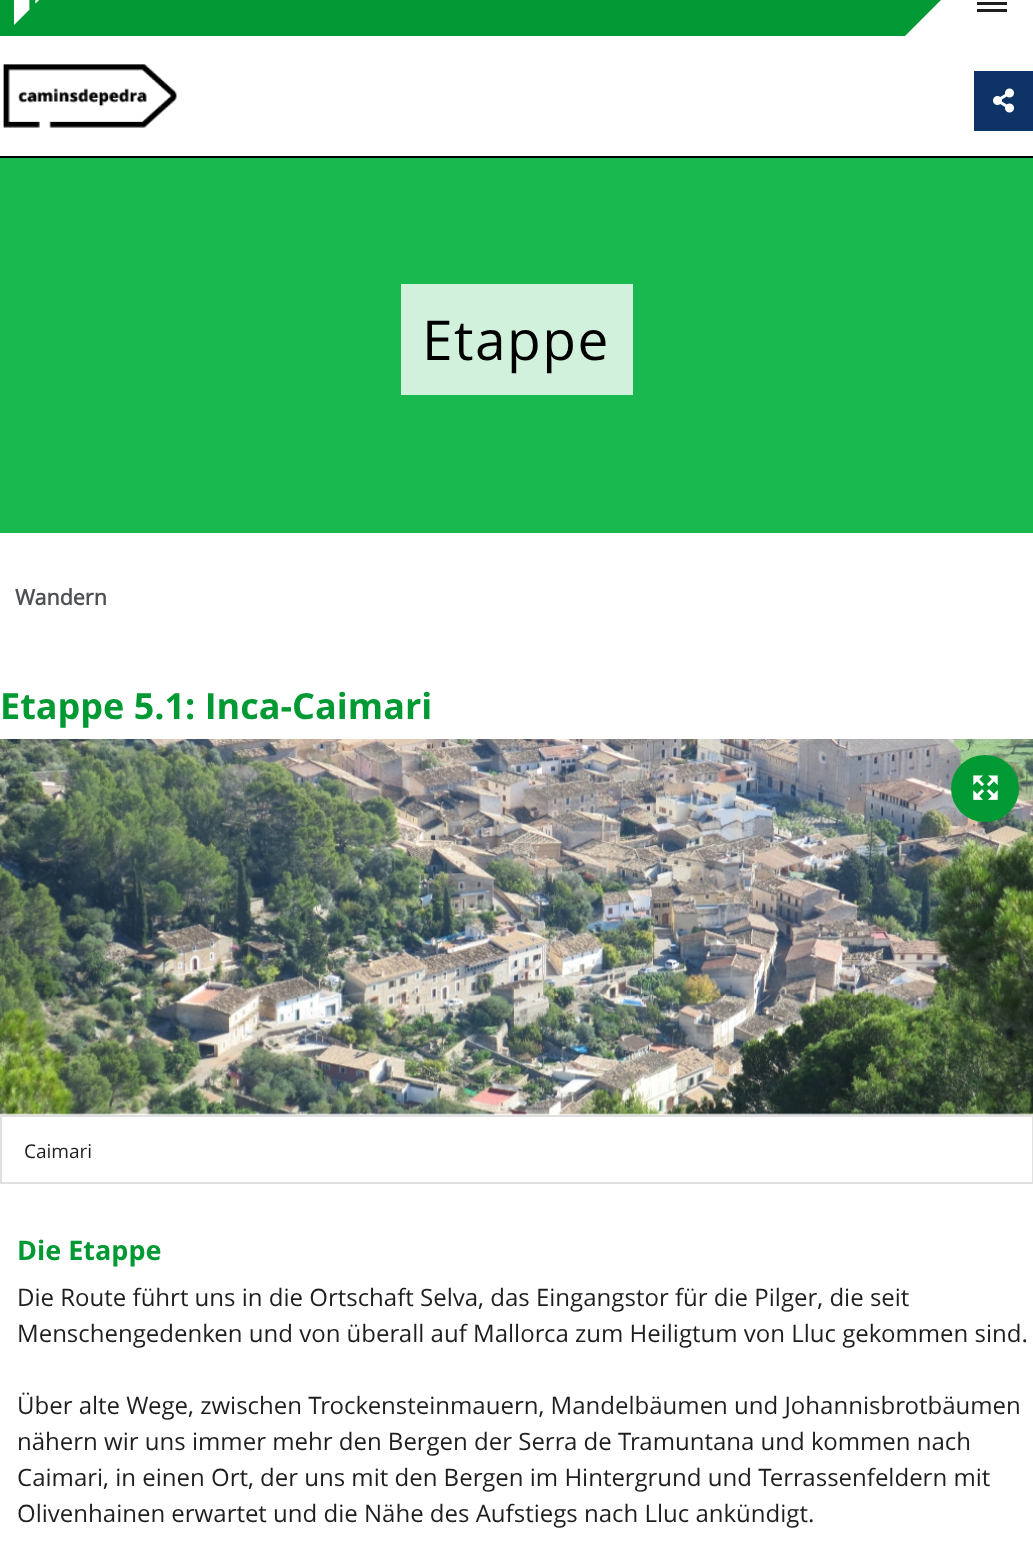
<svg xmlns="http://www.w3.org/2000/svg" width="1033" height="1547">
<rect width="100%" height="100%" fill="#fff"/>
<rect width="941" height="36" fill="#093"/>
<image x="14" y="0" width="25" height="25" href="media/1.png"/>
<path d="M973-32h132l-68 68h-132z" fill="#fff"/>
<rect x="977" y="2" width="30" height="3" fill="#1f1f1f"/>
<rect x="977" y="9" width="30" height="3" fill="#1f1f1f"/>
<rect y="156" width="1033" height="2" fill="#000"/>
<image x="3" y="64" width="174" height="64" href="media/2.png"/>
<rect x="974" y="71" width="59" height="60" fill="#0e3366"/>
<image x="993" y="88" width="21" height="25" href="media/3.png"/>
<rect y="158" width="1033" height="375" fill="#19b94f"/>
<rect x="401" y="284" width="232" height="111" fill="#d1f1dc"/>
<text x="422" y="360" style="font-family:Open Sans;font-size:55px;letter-spacing:1.5px;fill:#000">Etappe</text>
<text x="15" y="605" style="font-family:Open Sans;font-size:21.5px;font-weight:bold;fill:#4d5154">Wandern</text>
<text x="0" y="719" style="font-family:'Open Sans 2';font-size:36px;font-weight:bold;fill:#093">Etappe 5.1: Inca-Caimari</text>
<image x="0" y="739" width="1033" height="376" href="media/4.png"/>
<rect x="951" y="755" width="68" height="67" rx="33.5" fill="#093"/>
<image x="973" y="775" width="25" height="25" href="media/5.png"/>
<rect x="1" y="1116" width="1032" height="67" fill="none" stroke="#e0e0e0" stroke-width="2"/>
<text x="24" y="1158" style="font-family:Open Sans;font-size:19px;fill:#1f1f1f">Caimari</text>
<text x="17" y="1260" style="font-family:'Open Sans 2';font-size:27px;font-weight:bold;fill:#093">Die Etappe</text>
<text x="17" y="1306" style="font-family:Open Sans;font-size:24px;fill:#1f1f1f">Die Route führt uns in die Ortschaft Selva, das Eingangstor für die Pilger, die seit</text>
<text x="17" y="1342" style="font-family:Open Sans;font-size:24px;fill:#1f1f1f">Menschengedenken und von überall auf Mallorca zum Heiligtum von Lluc gekommen sind.</text>
<text x="17" y="1414" style="font-family:Open Sans;font-size:24px;fill:#1f1f1f">Über alte Wege, zwischen Trockensteinmauern, Mandelbäumen und Johannisbrotbäumen</text>
<text x="17" y="1450" style="font-family:Open Sans;font-size:24px;fill:#1f1f1f">nähern wir uns immer mehr den Bergen der Serra de Tramuntana und kommen nach</text>
<text x="17" y="1486" style="font-family:Open Sans;font-size:24px;fill:#1f1f1f">Caimari, in einen Ort, der uns mit den Bergen im Hintergrund und Terrassenfeldern mit</text>
<text x="17" y="1522" style="font-family:Open Sans;font-size:24px;fill:#1f1f1f">Olivenhainen erwartet und die Nähe des Aufstiegs nach Lluc ankündigt.</text>
</svg>
